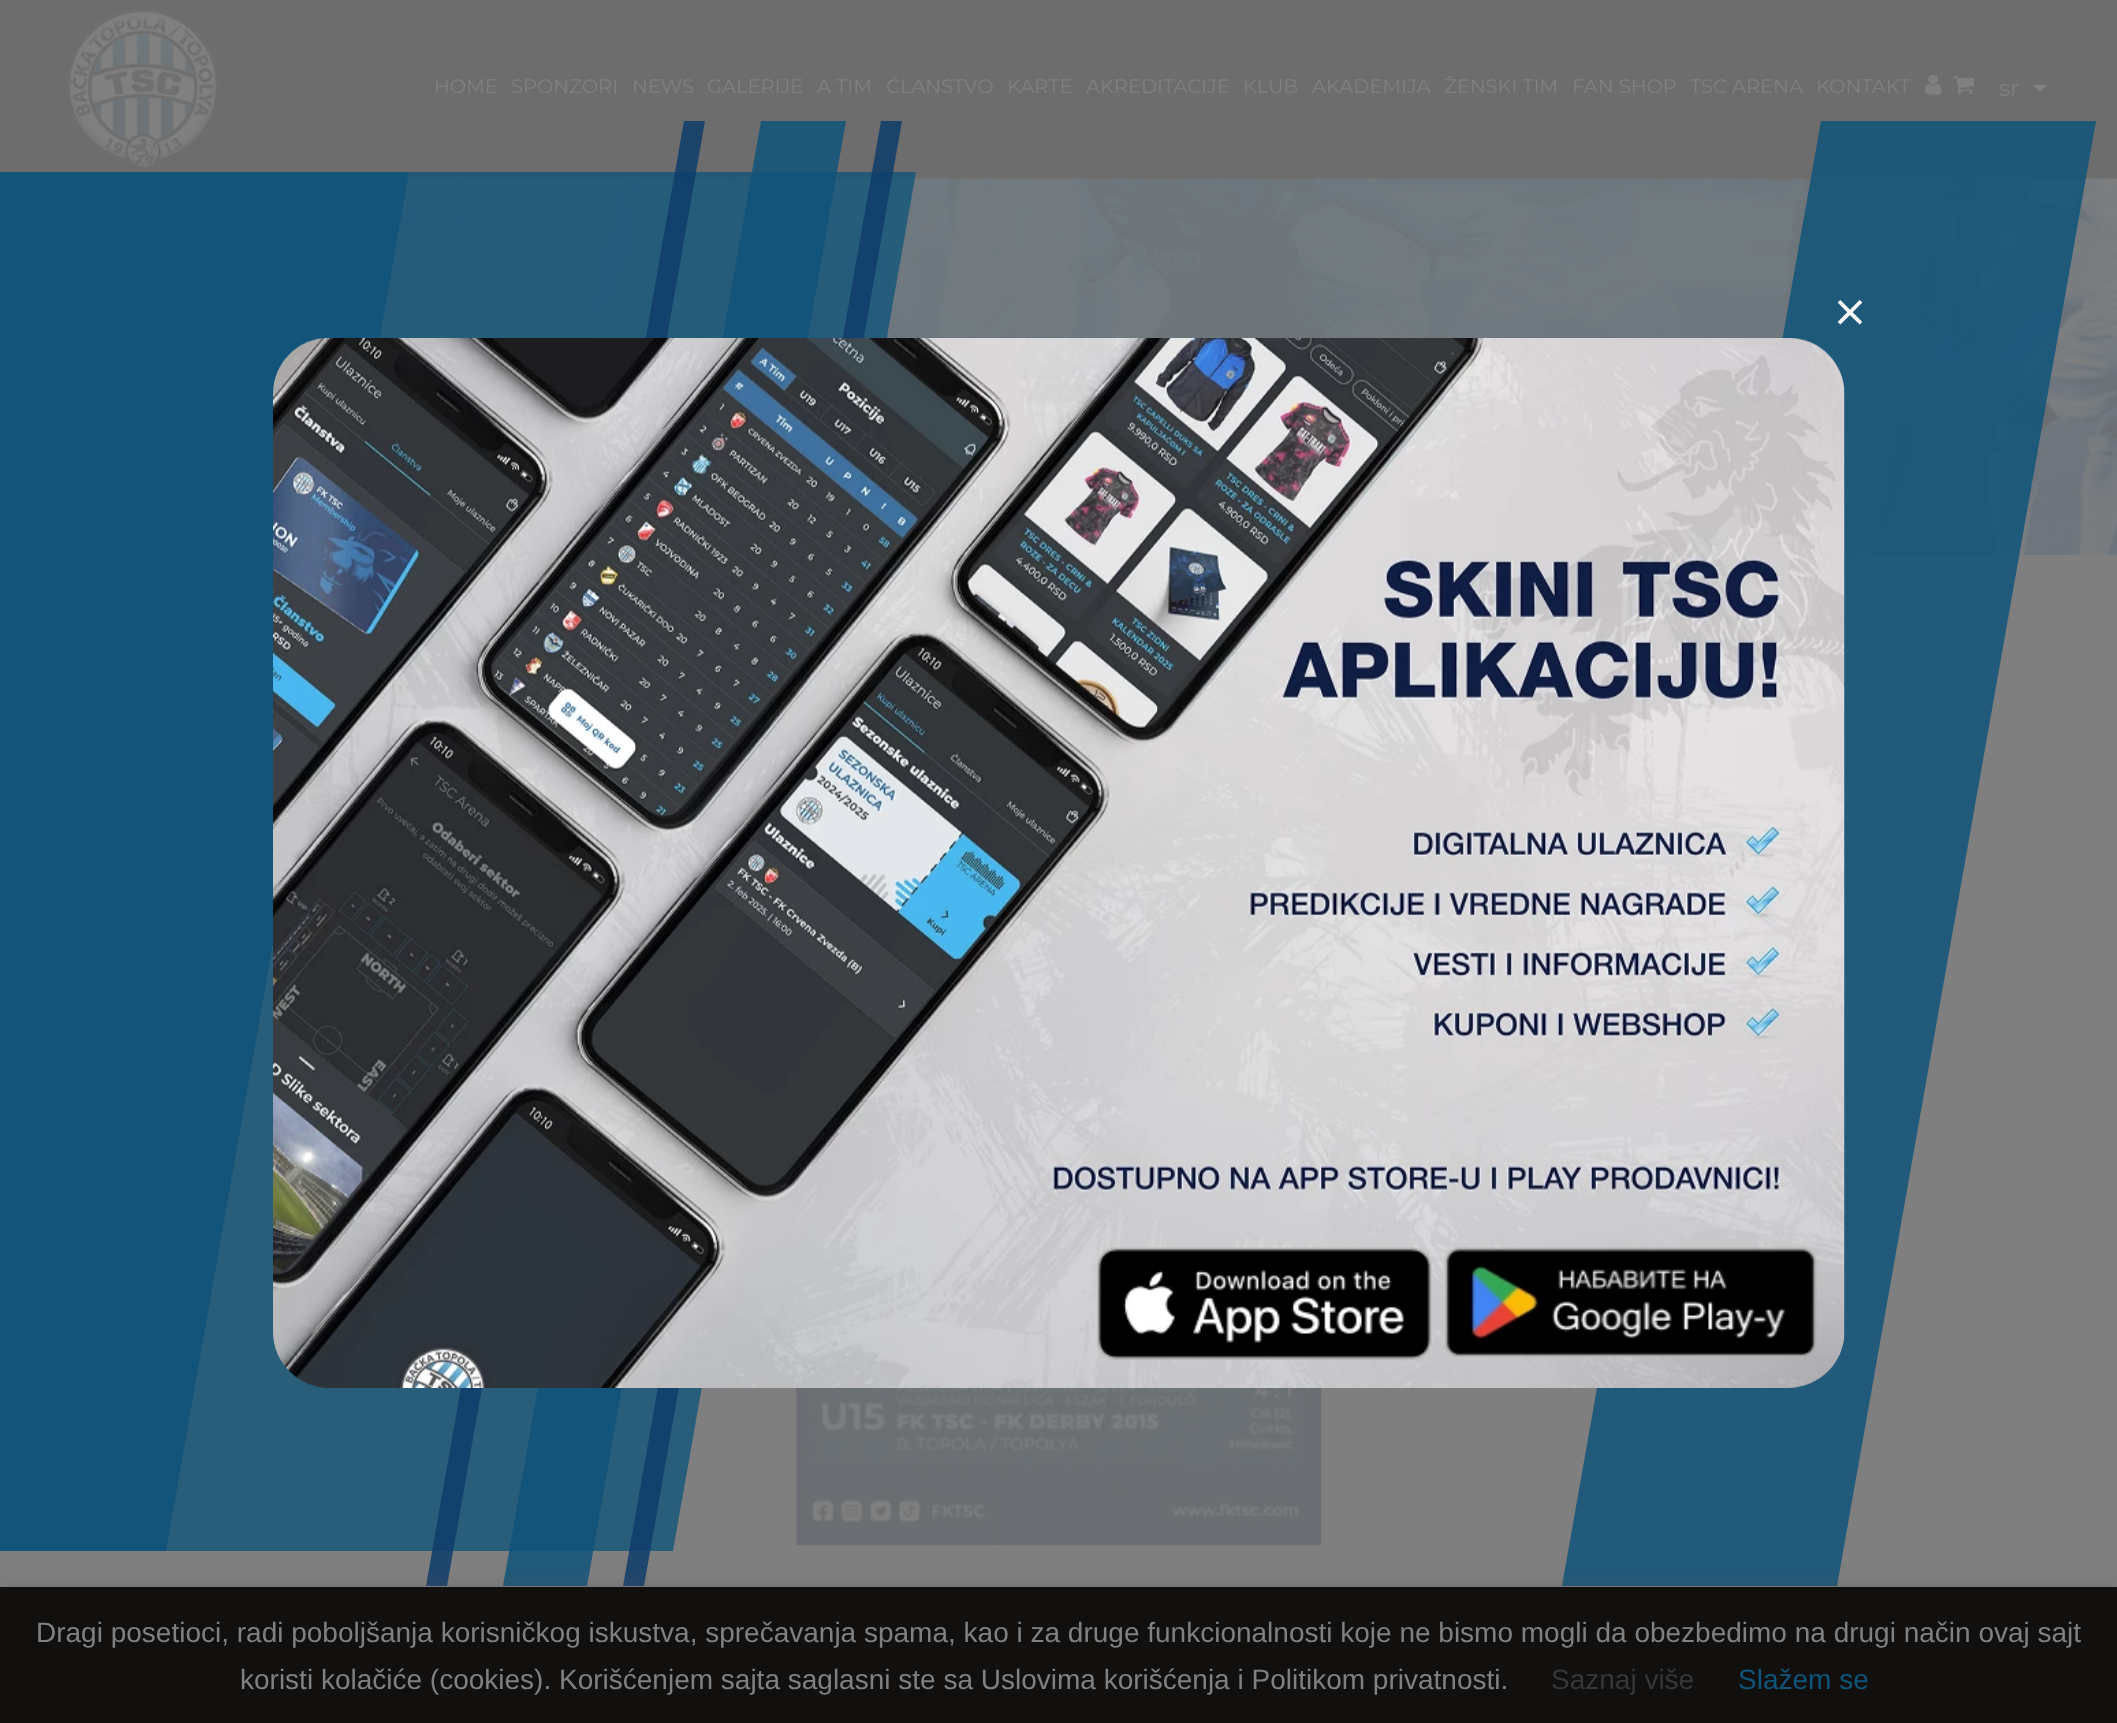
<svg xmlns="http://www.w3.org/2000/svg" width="2117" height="1723">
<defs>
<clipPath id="clip1"><rect y="179" width="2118" height="376"/></clipPath>
</defs>
<rect width="100%" height="100%" fill="#7f7f7f"/>
<rect width="2117" height="179" fill="#6d6d6d"/>
<image x="65" y="8" width="155" height="162" href="media/1.png"/>
<text x="434" y="93" style="font-family:Montserrat;font-size:19.5px;fill:#808080">HOME</text>
<text x="511" y="93" style="font-family:Montserrat;font-size:19.5px;fill:#808080">SPONZORI</text>
<text x="632" y="93" style="font-family:Montserrat;font-size:19.5px;fill:#808080">NEWS</text>
<text x="707" y="93" style="font-family:Montserrat;font-size:19.5px;fill:#808080">GALERIJE</text>
<text x="817" y="93" style="font-family:Montserrat;font-size:19.5px;fill:#808080">A TIM</text>
<text x="886" y="93" style="font-family:Montserrat;font-size:19.5px;fill:#808080">ČLANSTVO</text>
<text x="1007" y="93" style="font-family:Montserrat;font-size:19.5px;fill:#808080">KARTE</text>
<text x="1086" y="93" style="font-family:Montserrat;font-size:19.5px;fill:#808080">AKREDITACIJE</text>
<text x="1243" y="93" style="font-family:Montserrat;font-size:19.5px;fill:#808080">KLUB</text>
<text x="1312" y="93" style="font-family:Montserrat;font-size:19.5px;fill:#808080">AKADEMIJA</text>
<text x="1444" y="93" style="font-family:Montserrat;font-size:19.5px;fill:#808080">ŽENSKI TIM</text>
<text x="1572" y="93" style="font-family:Montserrat;font-size:19.5px;fill:#808080">FAN SHOP</text>
<text x="1690" y="93" style="font-family:Montserrat;font-size:19.5px;fill:#808080">TSC ARENA</text>
<text x="1816" y="93" style="font-family:Montserrat;font-size:19.5px;fill:#808080">KONTAKT</text>
<image x="1925" y="74" width="17" height="21" href="media/2.png"/>
<image x="1953" y="76" width="22" height="19" href="media/3.png"/>
<text x="1999" y="96" style="font-family:Montserrat;font-size:23px;fill:#808080">sr</text>
<image x="2033" y="84" width="14" height="9" href="media/4.png"/>
<image x="0" y="178" width="2117" height="377" href="media/5.png"/>
<g clip-path="url(#clip1)">
<path d="M-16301 178h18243l-349 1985h-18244z" fill="#6e797fb3"/>
</g>
<rect x="96" y="854" width="177" height="63" fill="#6e767d"/>
<image x="796" y="1388" width="526" height="158" href="media/9.png"/>
<path d="M-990 172h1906l-243 1379h-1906z" fill="#0f547ac2"/>
<path d="M761 121h85l-259 1465h-84z" fill="#0f547ad6"/>
<path d="M684 121h21l-258 1465h-21z" fill="#0d3b69d6"/>
<path d="M881 121h21l-258 1465h-21z" fill="#0d3b69d6"/>
<path d="M1821 121h275l-259 1465h-275z" fill="#0f547ad6"/>
<path d="M-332 172h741l-243 1379h-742z" fill="#0f547ad6"/>
<text x="1834" y="332" style="font-family:Open Sans;font-size:56px;fill:#fafafa">×</text>
<image x="273" y="338" width="1572" height="1050" href="media/6.png"/>
<image x="1097" y="1247" width="335" height="113" href="media/7.png"/>
<image x="1445" y="1247" width="372" height="110" href="media/8.png"/>
<rect y="1586" width="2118" height="136" fill="#5656564d" filter="blur(9px)"/>
<rect y="1587" width="2117" height="136" fill="#12100f"/>
<text x="36" y="1642" style="font-family:Liberation Sans;font-size:28px;fill:#808080">Dragi posetioci, radi poboljšanja korisničkog iskustva, sprečavanja spama, kao i za druge funkcionalnosti koje ne bismo mogli da obezbedimo na drugi način ovaj sajt</text>
<text x="240" y="1689" style="font-family:Liberation Sans;font-size:28px;fill:#808080">koristi kolačiće (cookies). Korišćenjem sajta saglasni ste sa Uslovima korišćenja i Politikom privatnosti.</text>
<text x="1551" y="1689" style="font-family:Liberation Sans;font-size:28px;fill:#373737">Saznaj više</text>
<text x="1738" y="1689" style="font-family:Liberation Sans;font-size:28px;fill:#0f547a">Slažem se</text>
</svg>
